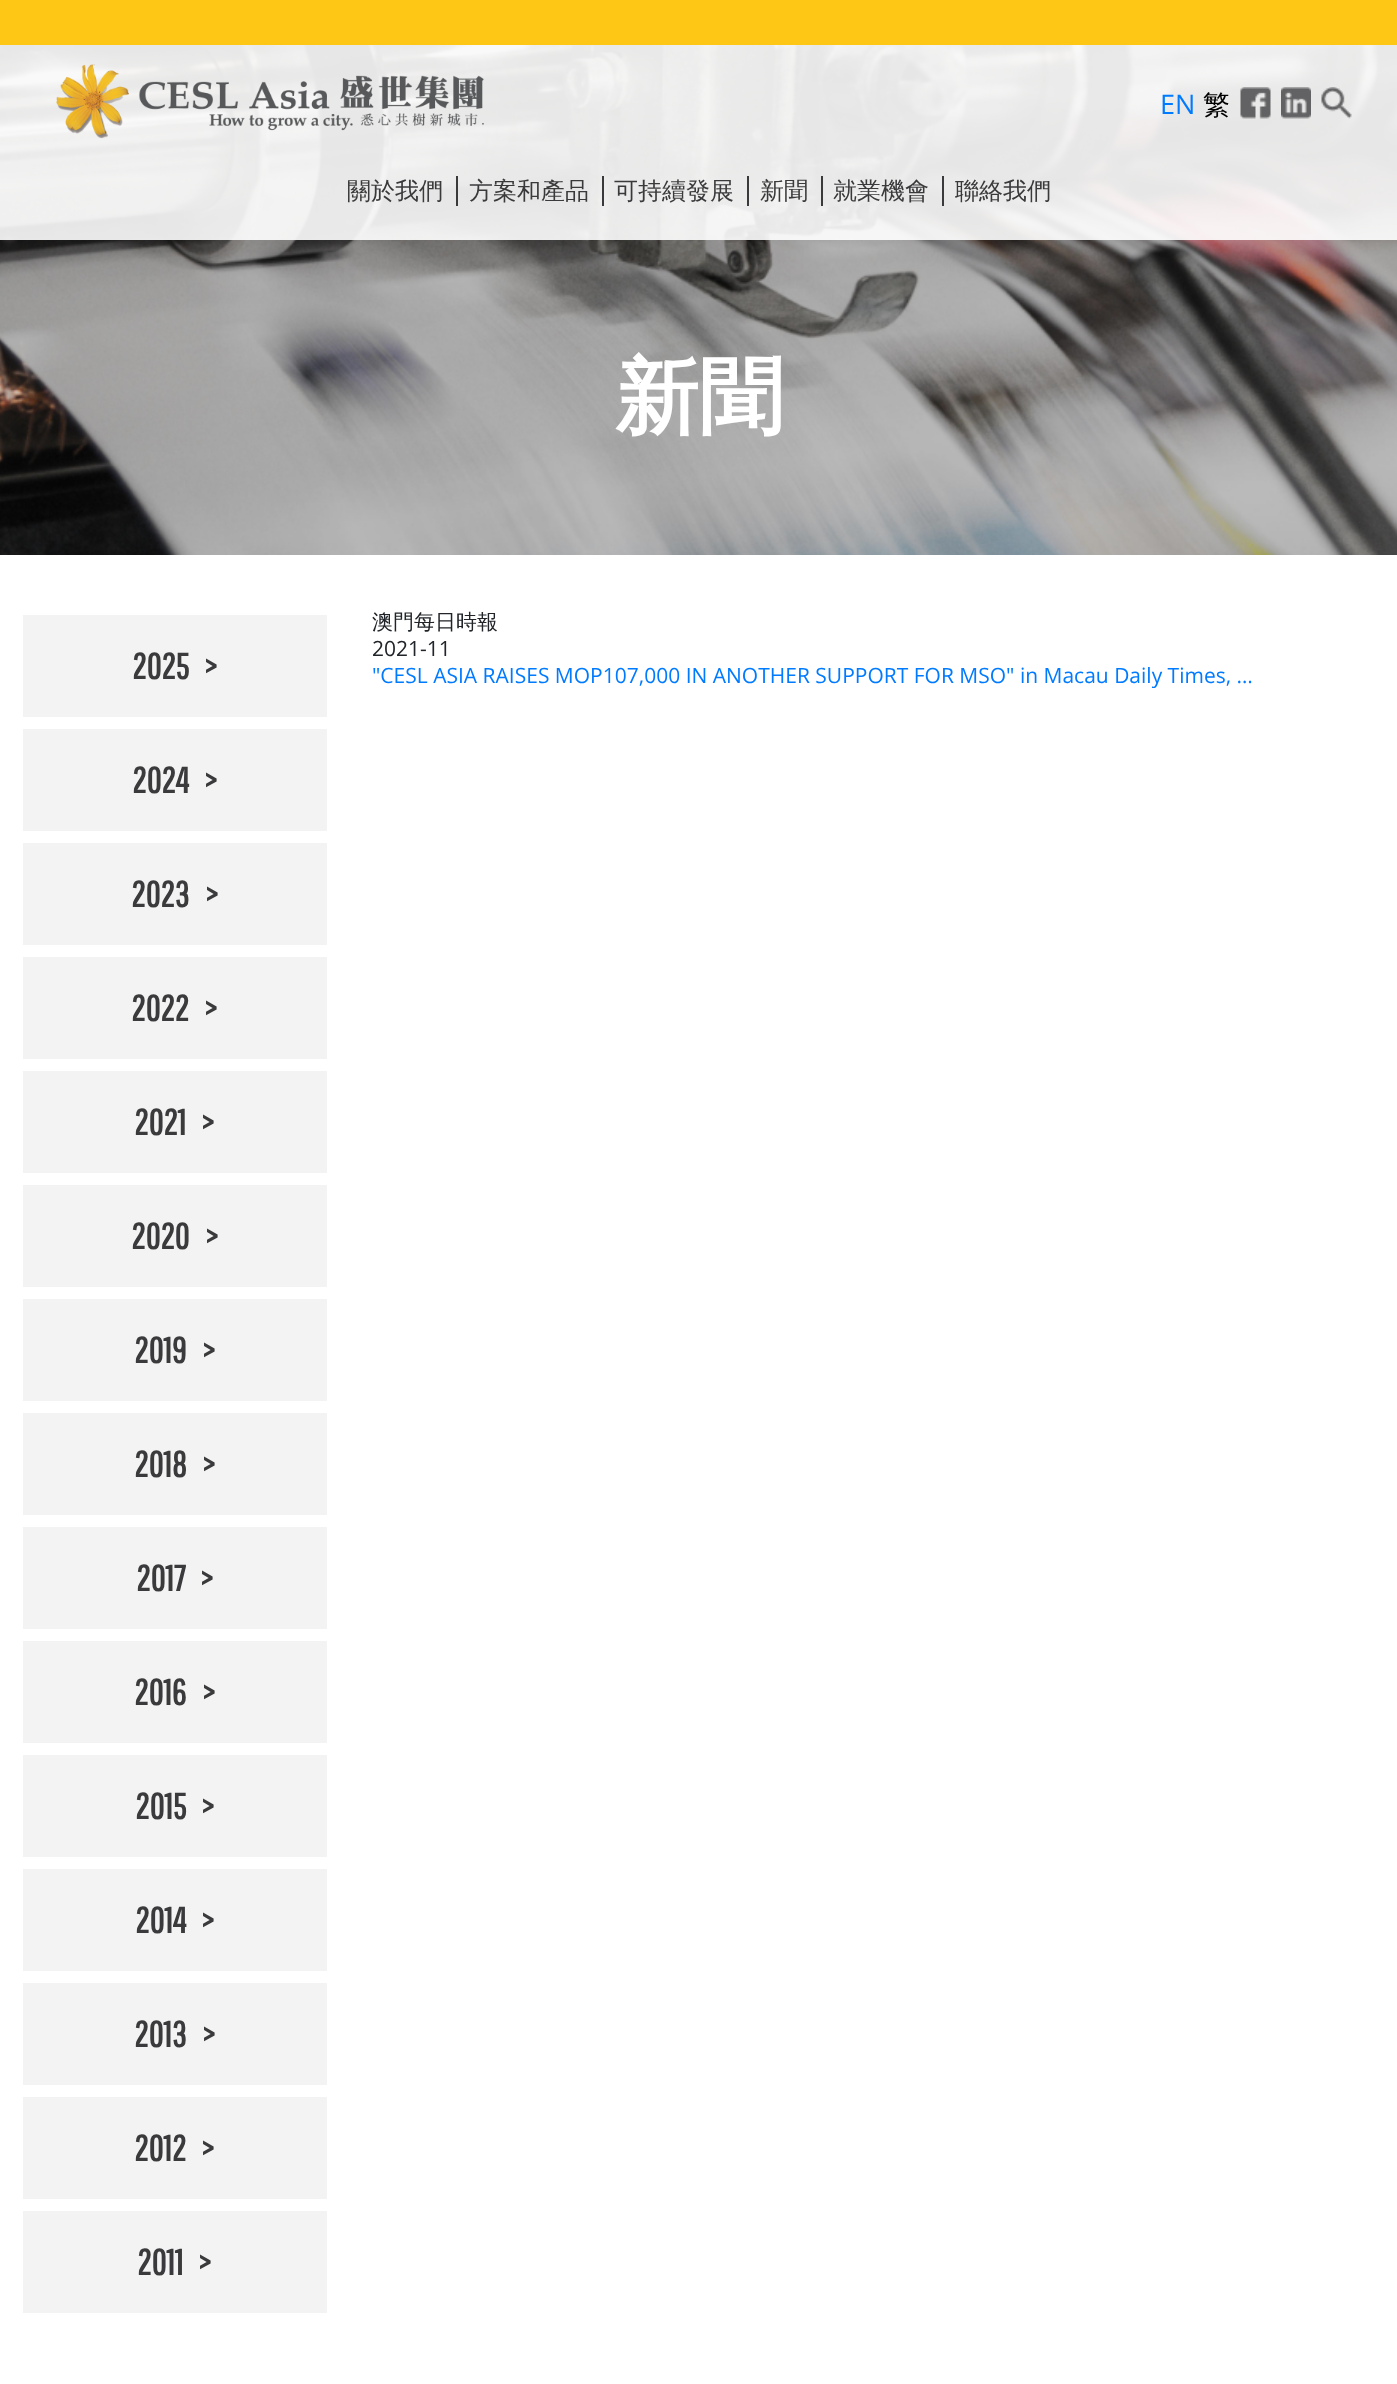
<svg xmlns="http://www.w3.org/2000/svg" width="1397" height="2384">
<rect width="100%" height="100%" fill="#fff"/>
<image x="0" y="45" width="1397" height="510" href="media/1.png"/>
<rect width="1397" height="45" fill="#fec615"/>
<rect y="45" width="1397" height="195" fill="#ffffffe6"/>
<image x="56" y="64" width="428" height="75" href="media/2.png"/>
<text x="1160" y="114" style="font-family:Open Sans;font-size:27px;fill:#007bff">EN</text>
<text x="1203" y="114" style="font-family:WenQuanYi Zen Hei;font-size:27px;font-weight:500;fill:#000">繁</text>
<image x="1240" y="87" width="31" height="32" href="media/3.png"/>
<image x="1281" y="87" width="30" height="32" href="media/4.png"/>
<image x="1321" y="87" width="31" height="32" href="media/5.png"/>
<rect x="456" y="176" width="2" height="30" fill="#3a3a3c"/>
<text x="347" y="199" style="font-family:WenQuanYi Zen Hei;font-size:24px;font-weight:500;fill:#3a3a3c">關於我們</text>
<rect x="602" y="176" width="2" height="30" fill="#3a3a3c"/>
<text x="469" y="199" style="font-family:WenQuanYi Zen Hei;font-size:24px;font-weight:500;fill:#3a3a3c">方案和產品</text>
<rect x="747" y="176" width="2" height="30" fill="#3a3a3c"/>
<text x="614" y="199" style="font-family:WenQuanYi Zen Hei;font-size:24px;font-weight:500;fill:#3a3a3c">可持續發展</text>
<rect x="821" y="176" width="2" height="30" fill="#3a3a3c"/>
<text x="760" y="199" style="font-family:WenQuanYi Zen Hei;font-size:24px;font-weight:500;fill:#3a3a3c">新聞</text>
<rect x="942" y="176" width="2" height="30" fill="#3a3a3c"/>
<text x="833" y="199" style="font-family:WenQuanYi Zen Hei;font-size:24px;font-weight:500;fill:#3a3a3c">就業機會</text>
<text x="955" y="199" style="font-family:WenQuanYi Zen Hei;font-size:24px;font-weight:500;fill:#3a3a3c">聯絡我們</text>
<text x="615" y="426" style="font-family:WenQuanYi Zen Hei;font-size:84px;font-weight:bold;fill:#fff">新聞</text>
<rect x="23" y="615" width="304" height="102" fill="#f3f3f3"/>
<text x="132" y="679" style="font-family:Pathway Gothic One;font-size:36px;font-weight:bold;fill:#3a3a3c">2025</text>
<text x="204" y="679" style="font-family:Pathway Gothic One;font-size:36px;font-weight:bold;fill:#3a3a3c">&gt;</text>
<rect x="23" y="729" width="304" height="102" fill="#f3f3f3"/>
<text x="132" y="793" style="font-family:Pathway Gothic One;font-size:36px;font-weight:bold;fill:#3a3a3c">2024</text>
<text x="204" y="793" style="font-family:Pathway Gothic One;font-size:36px;font-weight:bold;fill:#3a3a3c">&gt;</text>
<rect x="23" y="843" width="304" height="102" fill="#f3f3f3"/>
<text x="131" y="907" style="font-family:Pathway Gothic One;font-size:36px;font-weight:bold;fill:#3a3a3c">2023</text>
<text x="205" y="907" style="font-family:Pathway Gothic One;font-size:36px;font-weight:bold;fill:#3a3a3c">&gt;</text>
<rect x="23" y="957" width="304" height="102" fill="#f3f3f3"/>
<text x="131" y="1021" style="font-family:Pathway Gothic One;font-size:36px;font-weight:bold;fill:#3a3a3c">2022</text>
<text x="204" y="1021" style="font-family:Pathway Gothic One;font-size:36px;font-weight:bold;fill:#3a3a3c">&gt;</text>
<rect x="23" y="1071" width="304" height="102" fill="#f3f3f3"/>
<text x="134" y="1135" style="font-family:Pathway Gothic One;font-size:36px;font-weight:bold;fill:#3a3a3c">2021</text>
<text x="201" y="1135" style="font-family:Pathway Gothic One;font-size:36px;font-weight:bold;fill:#3a3a3c">&gt;</text>
<rect x="23" y="1185" width="304" height="102" fill="#f3f3f3"/>
<text x="131" y="1249" style="font-family:Pathway Gothic One;font-size:36px;font-weight:bold;fill:#3a3a3c">2020</text>
<text x="205" y="1249" style="font-family:Pathway Gothic One;font-size:36px;font-weight:bold;fill:#3a3a3c">&gt;</text>
<rect x="23" y="1299" width="304" height="102" fill="#f3f3f3"/>
<text x="134" y="1363" style="font-family:Pathway Gothic One;font-size:36px;font-weight:bold;fill:#3a3a3c">2019</text>
<text x="202" y="1363" style="font-family:Pathway Gothic One;font-size:36px;font-weight:bold;fill:#3a3a3c">&gt;</text>
<rect x="23" y="1413" width="304" height="102" fill="#f3f3f3"/>
<text x="134" y="1477" style="font-family:Pathway Gothic One;font-size:36px;font-weight:bold;fill:#3a3a3c">2018</text>
<text x="202" y="1477" style="font-family:Pathway Gothic One;font-size:36px;font-weight:bold;fill:#3a3a3c">&gt;</text>
<rect x="23" y="1527" width="304" height="102" fill="#f3f3f3"/>
<text x="136" y="1591" style="font-family:Pathway Gothic One;font-size:36px;font-weight:bold;fill:#3a3a3c">2017</text>
<text x="200" y="1591" style="font-family:Pathway Gothic One;font-size:36px;font-weight:bold;fill:#3a3a3c">&gt;</text>
<rect x="23" y="1641" width="304" height="102" fill="#f3f3f3"/>
<text x="134" y="1705" style="font-family:Pathway Gothic One;font-size:36px;font-weight:bold;fill:#3a3a3c">2016</text>
<text x="202" y="1705" style="font-family:Pathway Gothic One;font-size:36px;font-weight:bold;fill:#3a3a3c">&gt;</text>
<rect x="23" y="1755" width="304" height="102" fill="#f3f3f3"/>
<text x="135" y="1819" style="font-family:Pathway Gothic One;font-size:36px;font-weight:bold;fill:#3a3a3c">2015</text>
<text x="201" y="1819" style="font-family:Pathway Gothic One;font-size:36px;font-weight:bold;fill:#3a3a3c">&gt;</text>
<rect x="23" y="1869" width="304" height="102" fill="#f3f3f3"/>
<text x="135" y="1933" style="font-family:Pathway Gothic One;font-size:36px;font-weight:bold;fill:#3a3a3c">2014</text>
<text x="201" y="1933" style="font-family:Pathway Gothic One;font-size:36px;font-weight:bold;fill:#3a3a3c">&gt;</text>
<rect x="23" y="1983" width="304" height="102" fill="#f3f3f3"/>
<text x="134" y="2047" style="font-family:Pathway Gothic One;font-size:36px;font-weight:bold;fill:#3a3a3c">2013</text>
<text x="202" y="2047" style="font-family:Pathway Gothic One;font-size:36px;font-weight:bold;fill:#3a3a3c">&gt;</text>
<rect x="23" y="2097" width="304" height="102" fill="#f3f3f3"/>
<text x="134" y="2161" style="font-family:Pathway Gothic One;font-size:36px;font-weight:bold;fill:#3a3a3c">2012</text>
<text x="201" y="2161" style="font-family:Pathway Gothic One;font-size:36px;font-weight:bold;fill:#3a3a3c">&gt;</text>
<rect x="23" y="2211" width="304" height="102" fill="#f3f3f3"/>
<text x="137" y="2275" style="font-family:Pathway Gothic One;font-size:36px;font-weight:bold;fill:#3a3a3c">2011</text>
<text x="198" y="2275" style="font-family:Pathway Gothic One;font-size:36px;font-weight:bold;fill:#3a3a3c">&gt;</text>
<text x="372" y="629" style="font-family:WenQuanYi Zen Hei;font-size:21px;font-weight:500;fill:#212529">澳門每日時報</text>
<text x="372" y="656" style="font-family:Open Sans;font-size:21px;fill:#212529">2021-11</text>
<text x="372" y="683" style="font-family:Open Sans;font-size:21px;fill:#007bff">"CESL ASIA RAISES MOP107,000 IN ANOTHER SUPPORT FOR MSO" in Macau Daily Times, …</text>
</svg>
